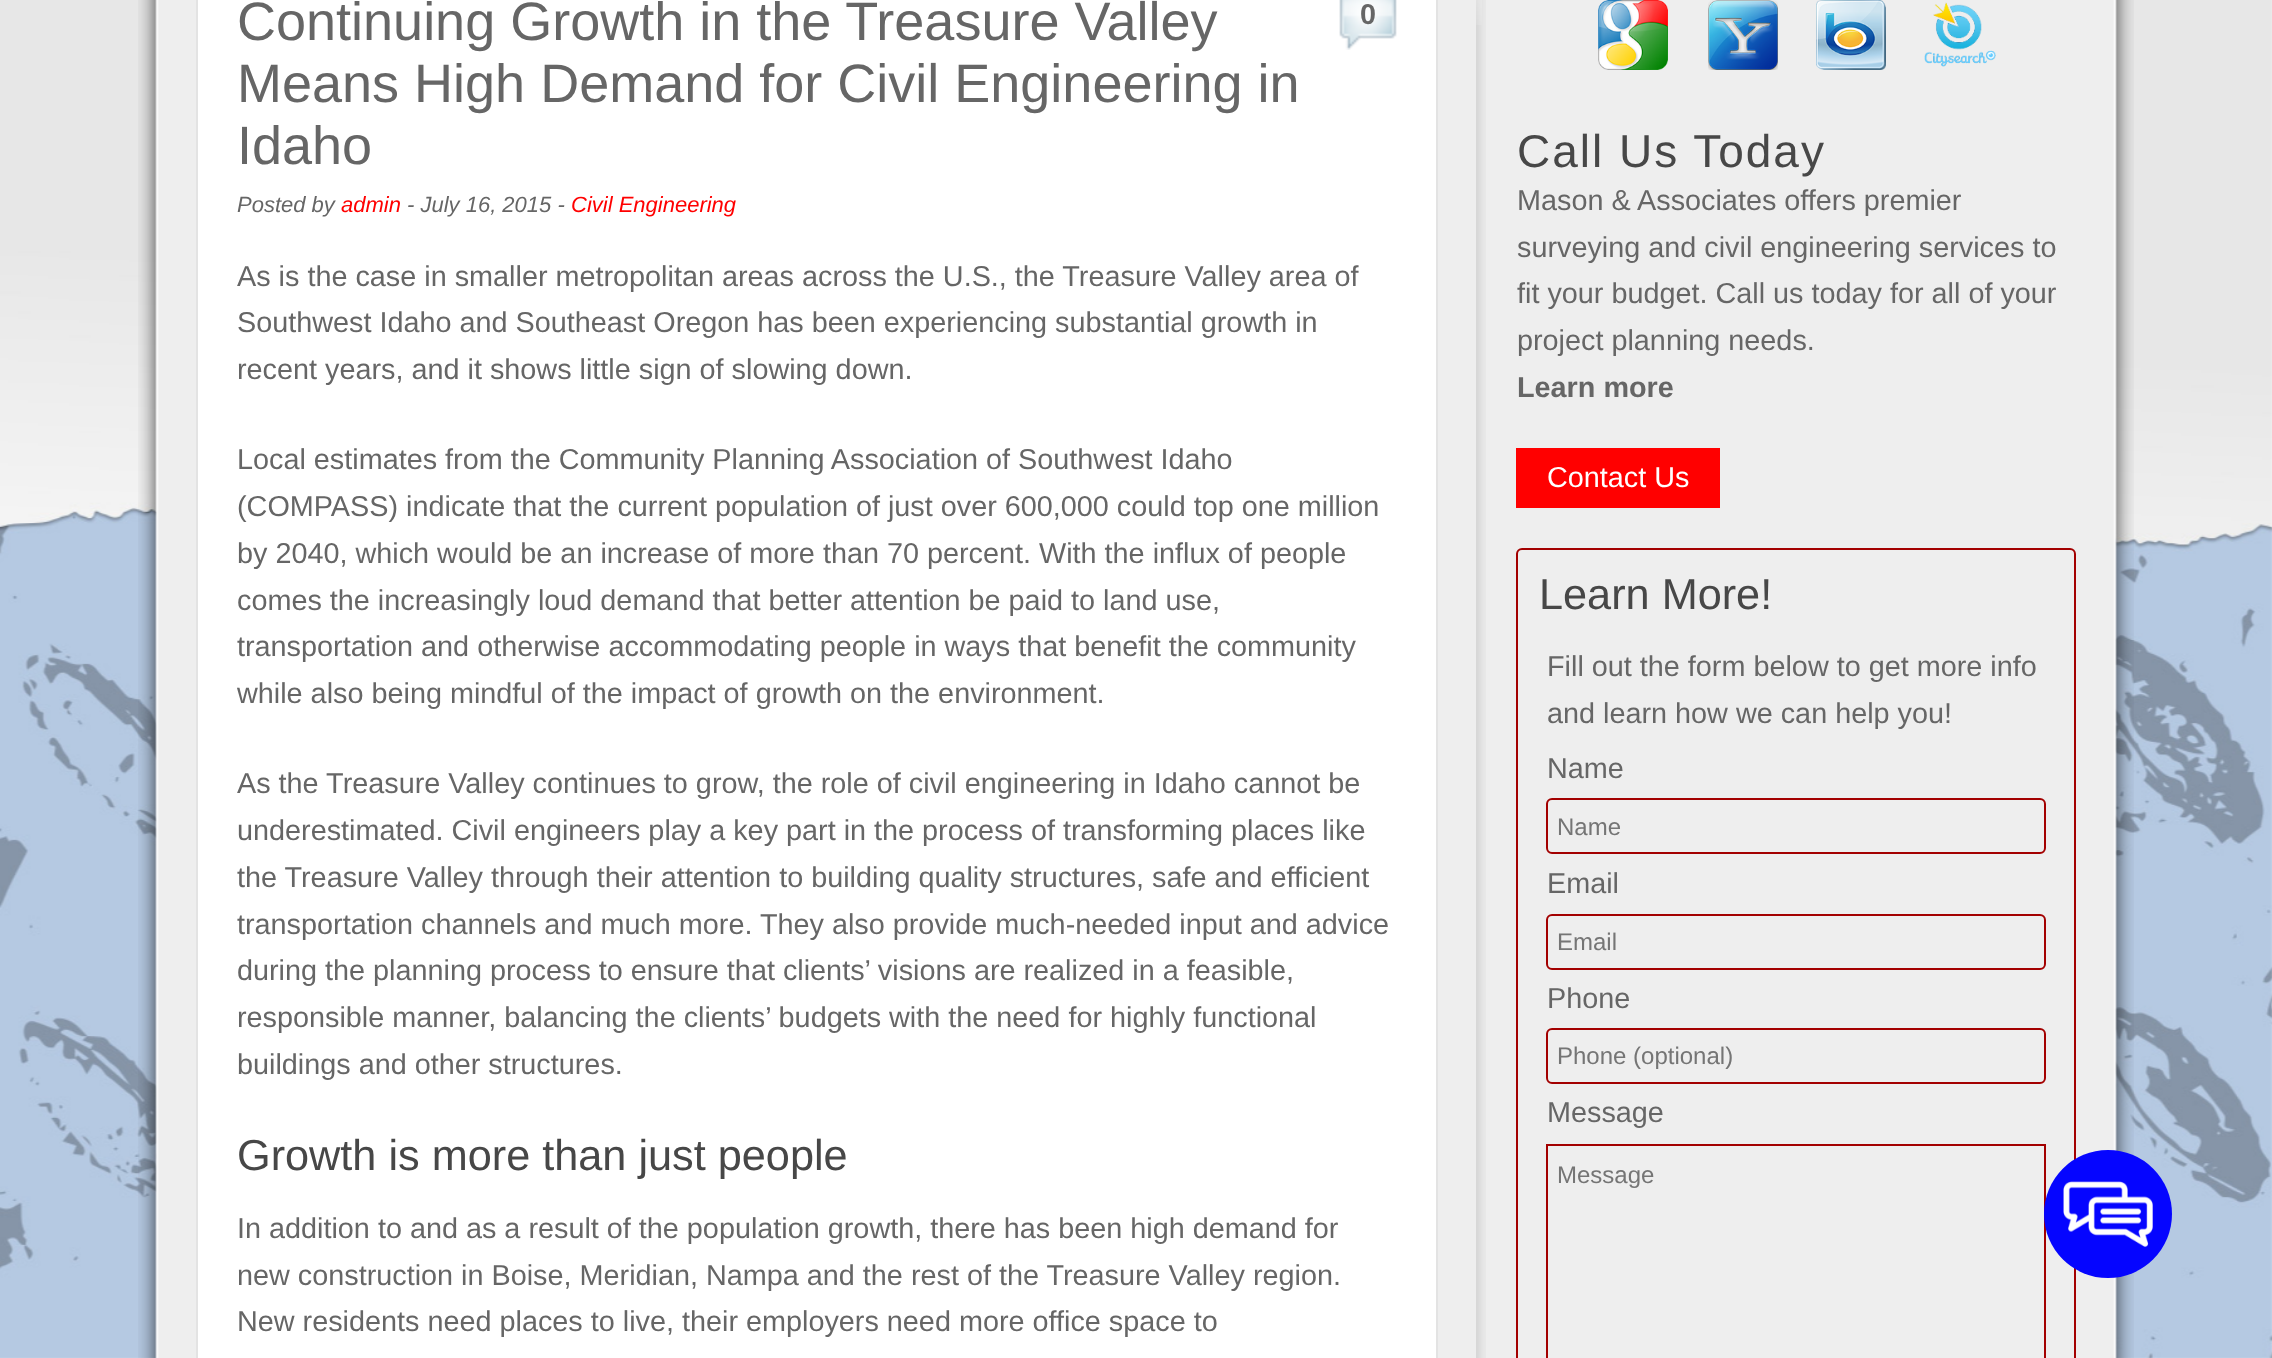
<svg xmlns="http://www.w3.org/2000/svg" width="2272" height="1358">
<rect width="100%" height="100%" fill="#fff"/>
<image x="0" y="0" width="2272" height="1358" href="media/1.png"/>
<image x="138" y="0" width="38" height="1358" href="media/2.png"/>
<rect x="176" width="1920" height="1358" fill="#eee"/>
<rect x="197" y="-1" width="1240" height="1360" fill="#fff" stroke="#e3e3e3" stroke-width="2"/>
<text x="237" y="40" style="font-family:Liberation Sans;font-size:54px;fill:#666">Continuing Growth in the Treasure Valley</text>
<text x="237" y="102" style="font-family:Liberation Sans;font-size:54px;fill:#666">Means High Demand for Civil Engineering in</text>
<text x="237" y="164" style="font-family:Liberation Sans;font-size:54px;fill:#666">Idaho</text>
<image x="1339" y="0" width="58" height="50" href="media/3.png"/>
<text x="1360" y="24" style="font-family:Liberation Sans;font-size:28.8px;font-weight:bold;fill:#666">0</text>
<text x="237" y="212" style="font-family:Liberation Sans;font-size:22px;font-style:italic;fill:#666">Posted by</text>
<text x="341" y="212" style="font-family:Liberation Sans;font-size:22px;font-style:italic;fill:#f00">admin</text>
<text x="407" y="212" style="font-family:Liberation Sans;font-size:22px;font-style:italic;fill:#666">- July 16, 2015 -</text>
<text x="571" y="212" style="font-family:Liberation Sans;font-size:22px;font-style:italic;fill:#f00">Civil Engineering</text>
<text x="237" y="286" style="font-family:Liberation Sans;font-size:28.8px;fill:#666">As is the case in smaller metropolitan areas across the U.S., the Treasure Valley area of</text>
<text x="237" y="332" style="font-family:Liberation Sans;font-size:28.8px;fill:#666">Southwest Idaho and Southeast Oregon has been experiencing substantial growth in</text>
<text x="237" y="379" style="font-family:Liberation Sans;font-size:28.8px;fill:#666">recent years, and it shows little sign of slowing down.</text>
<text x="237" y="469" style="font-family:Liberation Sans;font-size:28.8px;fill:#666">Local estimates from the Community Planning Association of Southwest Idaho</text>
<text x="237" y="516" style="font-family:Liberation Sans;font-size:28.8px;fill:#666">(COMPASS) indicate that the current population of just over 600,000 could top one million</text>
<text x="237" y="563" style="font-family:Liberation Sans;font-size:28.8px;fill:#666">by 2040, which would be an increase of more than 70 percent. With the influx of people</text>
<text x="237" y="610" style="font-family:Liberation Sans;font-size:28.8px;fill:#666">comes the increasingly loud demand that better attention be paid to land use,</text>
<text x="237" y="656" style="font-family:Liberation Sans;font-size:28.8px;fill:#666">transportation and otherwise accommodating people in ways that benefit the community</text>
<text x="237" y="703" style="font-family:Liberation Sans;font-size:28.8px;fill:#666">while also being mindful of the impact of growth on the environment.</text>
<text x="237" y="793" style="font-family:Liberation Sans;font-size:28.8px;fill:#666">As the Treasure Valley continues to grow, the role of civil engineering in Idaho cannot be</text>
<text x="237" y="840" style="font-family:Liberation Sans;font-size:28.8px;fill:#666">underestimated. Civil engineers play a key part in the process of transforming places like</text>
<text x="237" y="887" style="font-family:Liberation Sans;font-size:28.8px;fill:#666">the Treasure Valley through their attention to building quality structures, safe and efficient</text>
<text x="237" y="934" style="font-family:Liberation Sans;font-size:28.8px;fill:#666">transportation channels and much more. They also provide much-needed input and advice</text>
<text x="237" y="980" style="font-family:Liberation Sans;font-size:28.8px;fill:#666">during the planning process to ensure that clients’ visions are realized in a feasible,</text>
<text x="237" y="1027" style="font-family:Liberation Sans;font-size:28.8px;fill:#666">responsible manner, balancing the clients’ budgets with the need for highly functional</text>
<text x="237" y="1074" style="font-family:Liberation Sans;font-size:28.8px;fill:#666">buildings and other structures.</text>
<text x="237" y="1170" style="font-family:Liberation Sans;font-size:43.25px;fill:#474747">Growth is more than just people</text>
<text x="237" y="1238" style="font-family:Liberation Sans;font-size:28.8px;fill:#666">In addition to and as a result of the population growth, there has been high demand for</text>
<text x="237" y="1285" style="font-family:Liberation Sans;font-size:28.8px;fill:#666">new construction in Boise, Meridian, Nampa and the rest of the Treasure Valley region.</text>
<text x="237" y="1331" style="font-family:Liberation Sans;font-size:28.8px;fill:#666">New residents need places to live, their employers need more office space to</text>
<image x="1476" y="0" width="10" height="1358" href="media/4.png"/>
<image x="1476" y="0" width="6" height="25" href="media/5.png"/>
<image x="1598" y="0" width="70" height="70" href="media/6.png"/>
<image x="1708" y="0" width="70" height="70" href="media/7.png"/>
<image x="1816" y="0" width="70" height="70" href="media/8.png"/>
<image x="1924" y="2" width="72" height="65" href="media/9.png"/>
<text x="1517" y="167" style="font-family:Liberation Sans;font-size:46px;letter-spacing:2px;fill:#474747">Call Us Today</text>
<text x="1517" y="210" style="font-family:Liberation Sans;font-size:28.8px;fill:#666">Mason &amp; Associates offers premier</text>
<text x="1517" y="257" style="font-family:Liberation Sans;font-size:28.8px;fill:#666">surveying and civil engineering services to</text>
<text x="1517" y="303" style="font-family:Liberation Sans;font-size:28.8px;fill:#666">fit your budget. Call us today for all of your</text>
<text x="1517" y="350" style="font-family:Liberation Sans;font-size:28.8px;fill:#666">project planning needs.</text>
<text x="1517" y="397" style="font-family:Liberation Sans;font-size:28.8px;font-weight:bold;fill:#666">Learn more</text>
<rect x="1516" y="448" width="204" height="60" fill="#f00"/>
<text x="1547" y="487" style="font-family:Liberation Sans;font-size:28.8px;fill:#fff">Contact Us</text>
<rect x="1517" y="549" width="558" height="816" rx="5" fill="none" stroke="#a30000" stroke-width="2"/>
<text x="1539" y="609" style="font-family:Liberation Sans;font-size:43.25px;fill:#474747">Learn More!</text>
<text x="1547" y="676" style="font-family:Liberation Sans;font-size:28.8px;fill:#666">Fill out the form below to get more info</text>
<text x="1547" y="723" style="font-family:Liberation Sans;font-size:28.8px;fill:#666">and learn how we can help you!</text>
<text x="1547" y="778" style="font-family:Liberation Sans;font-size:28.8px;fill:#666">Name</text>
<rect x="1547" y="799" width="498" height="54" rx="5" fill="none" stroke="#a30000" stroke-width="2"/>
<text x="1557" y="835" style="font-family:Liberation Sans;font-size:24px;fill:#757575">Name</text>
<text x="1547" y="893" style="font-family:Liberation Sans;font-size:28.8px;fill:#666">Email</text>
<rect x="1547" y="915" width="498" height="54" rx="5" fill="none" stroke="#a30000" stroke-width="2"/>
<text x="1557" y="950" style="font-family:Liberation Sans;font-size:24px;fill:#757575">Email</text>
<text x="1547" y="1008" style="font-family:Liberation Sans;font-size:28.8px;fill:#666">Phone</text>
<rect x="1547" y="1029" width="498" height="54" rx="5" fill="none" stroke="#a30000" stroke-width="2"/>
<text x="1557" y="1064" style="font-family:Liberation Sans;font-size:24px;fill:#757575">Phone (optional)</text>
<text x="1547" y="1122" style="font-family:Liberation Sans;font-size:28.8px;fill:#666">Message</text>
<rect x="1547" y="1145" width="498" height="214" fill="none" stroke="#a30000" stroke-width="2"/>
<text x="1557" y="1183" style="font-family:Liberation Sans;font-size:24px;fill:#757575">Message</text>
<image x="2096" y="0" width="38" height="1358" href="media/10.png"/>
<circle cx="2108" cy="1214" r="64" fill="#0505ff"/>
<image x="2063" y="1181" width="90" height="66" href="media/11.png"/>
</svg>
